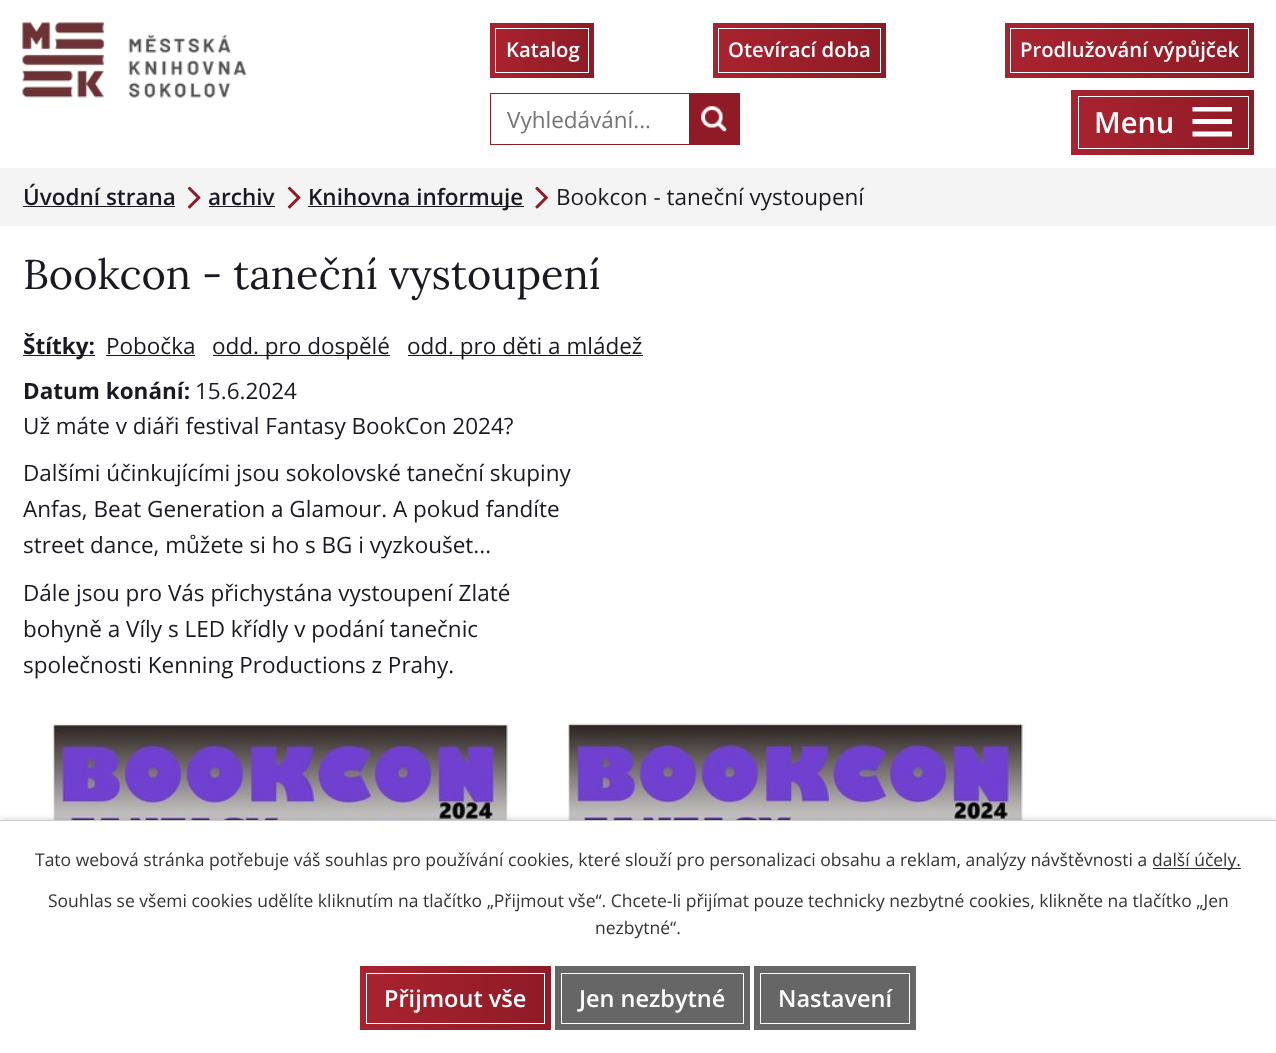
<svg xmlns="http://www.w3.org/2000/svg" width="1276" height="1053">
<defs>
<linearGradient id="g1" gradientUnits="userSpaceOnUse" x1="490" y1="50" x2="594" y2="50"><stop offset="0" stop-color="#a9232f"/><stop offset="1" stop-color="#8e1b26"/></linearGradient>
<linearGradient id="g2" gradientUnits="userSpaceOnUse" x1="713" y1="50" x2="886" y2="50"><stop offset="0" stop-color="#a9232f"/><stop offset="1" stop-color="#8e1b26"/></linearGradient>
<linearGradient id="g3" gradientUnits="userSpaceOnUse" x1="1005" y1="50" x2="1254" y2="50"><stop offset="0" stop-color="#a9232f"/><stop offset="1" stop-color="#8e1b26"/></linearGradient>
<linearGradient id="g4" gradientUnits="userSpaceOnUse" x1="1071" y1="123" x2="1254" y2="123"><stop offset="0" stop-color="#a9232f"/><stop offset="1" stop-color="#8e1b26"/></linearGradient>
<linearGradient id="g5" gradientUnits="userSpaceOnUse" x1="360" y1="998" x2="551" y2="998"><stop offset="0" stop-color="#a9232f"/><stop offset="1" stop-color="#8e1b26"/></linearGradient>
</defs>
<rect width="100%" height="100%" fill="#fff"/>
<image x="22" y="22" width="225" height="76" href="media/1.png"/>
<rect x="490" y="23" width="104" height="55" fill="url(#g1)"/>
<rect x="495.5" y="28.5" width="93" height="44" fill="none" stroke="#fff"/>
<text x="506" y="57" style="font-family:Open Sans;font-size:20.25px;font-weight:600;fill:#fff">Katalog</text>
<rect x="713" y="23" width="173" height="55" fill="url(#g2)"/>
<rect x="718.5" y="28.5" width="162" height="44" fill="none" stroke="#fff"/>
<text x="728" y="57" style="font-family:Open Sans;font-size:20.25px;font-weight:600;fill:#fff">Otevírací doba</text>
<rect x="1005" y="23" width="249" height="55" fill="url(#g3)"/>
<rect x="1010.5" y="28.5" width="238" height="44" fill="none" stroke="#fff"/>
<text x="1020" y="57" style="font-family:Open Sans;font-size:20.25px;font-weight:600;fill:#fff">Prodlužování výpůjček</text>
<rect x="490.5" y="93.5" width="249" height="51" fill="none" stroke="#8e1b26"/>
<text x="507" y="128" style="font-family:Open Sans;font-size:22.5px;fill:#757575">Vyhledávání...</text>
<rect x="689" y="94" width="50" height="50" fill="#8e1b26"/>
<image x="701" y="106" width="26" height="26" href="media/2.png"/>
<rect x="1071" y="90" width="183" height="65" fill="url(#g4)"/>
<rect x="1078.5" y="96.5" width="170" height="52" fill="none" stroke="#fff"/>
<text x="1094" y="133" style="font-family:Open Sans;font-size:29px;font-weight:600;fill:#fff">Menu</text>
<path d="M1192.5 136.5v-5h39.5v5zm0-29.5h39.5v4.5h-39.5zm0 17v-5h39.5v5z" fill="#fff"/>
<rect y="168" width="1276" height="58" fill="#f4f4f4"/>
<text x="23" y="205" style="font-family:Open Sans;font-size:22.5px;font-weight:600;fill:#191921">Úvodní strana</text>
<rect x="23" y="206" width="152" height="1" fill="#191921"/>
<image x="187" y="186" width="14" height="23" href="media/3.png"/>
<text x="208" y="205" style="font-family:Open Sans;font-size:22.5px;font-weight:600;fill:#191921">archiv</text>
<rect x="209" y="206" width="66" height="1" fill="#191921"/>
<image x="287" y="186" width="14" height="23" href="media/3.png"/>
<rect x="308" y="206" width="216" height="1" fill="#191921"/>
<text x="308" y="205" style="font-family:Open Sans;font-size:22.5px;font-weight:600;fill:#191921">Knihovna informuje</text>
<image x="535" y="186" width="13" height="23" href="media/4.png"/>
<text x="556" y="205" style="font-family:Open Sans;font-size:22.5px;fill:#191921">Bookcon - taneční vystoupení</text>
<text x="23" y="289" style="font-family:Lora;font-size:41.6px;fill:#191921">Bookcon - taneční vystoupení</text>
<rect x="23" y="355" width="72" height="1" fill="#191921"/>
<text x="23" y="354" style="font-family:Open Sans;font-size:22.5px;font-weight:bold;fill:#191921">Štítky:</text>
<text x="106" y="354" style="font-family:Open Sans;font-size:22.5px;fill:#191921">Pobočka</text>
<rect x="106" y="355" width="89" height="1" fill="#191921"/>
<rect x="213" y="355" width="177" height="1" fill="#191921"/>
<text x="212" y="354" style="font-family:Open Sans;font-size:22.5px;fill:#191921">odd. pro dospělé</text>
<rect x="408" y="355" width="235" height="1" fill="#191921"/>
<text x="407" y="354" style="font-family:Open Sans;font-size:22.5px;fill:#191921">odd. pro děti a mládež</text>
<text x="23" y="399" style="font-family:Open Sans;font-size:22.5px;font-weight:bold;fill:#191921">Datum konání:</text>
<text x="195" y="399" style="font-family:Open Sans;font-size:22.5px;fill:#191921">15.6.2024</text>
<text x="23" y="434" style="font-family:Open Sans;font-size:22.5px;fill:#191921">Už máte v diáři festival Fantasy BookCon 2024?</text>
<text x="23" y="481" style="font-family:Open Sans;font-size:22.5px;fill:#191921">Dalšími účinkujícími jsou sokolovské taneční skupiny</text>
<text x="23" y="517" style="font-family:Open Sans;font-size:22.5px;fill:#191921">Anfas, Beat Generation a Glamour. A pokud fandíte</text>
<text x="23" y="553" style="font-family:Open Sans;font-size:22.5px;fill:#191921">street dance, můžete si ho s BG i vyzkoušet...</text>
<text x="23" y="601" style="font-family:Open Sans;font-size:22.5px;fill:#191921">Dále jsou pro Vás přichystána vystoupení Zlaté</text>
<text x="23" y="637" style="font-family:Open Sans;font-size:22.5px;fill:#191921">bohyně a Víly s LED křídly v podání tanečnic</text>
<text x="23" y="673" style="font-family:Open Sans;font-size:22.5px;fill:#191921">společnosti Kenning Productions z Prahy.</text>
<image x="52" y="723" width="458" height="97" href="media/5.png"/>
<image x="567" y="723" width="459" height="97" href="media/6.png"/>
<rect y="820" width="1276" height="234" fill="#00000033" filter="blur(3px)"/>
<rect y="821" width="1276" height="232" fill="#fff"/>
<rect y="820" width="1276" height="1" fill="#ccc"/>
<text x="35" y="866" style="font-family:Open Sans;font-size:17.5px;fill:#333">Tato webová stránka potřebuje váš souhlas pro používání cookies, které slouží pro personalizaci obsahu a reklam, analýzy návštěvnosti a</text>
<rect x="1153" y="868" width="88" height="1" fill="#333"/>
<text x="1152" y="866" style="font-family:Open Sans;font-size:17.5px;fill:#333">další účely.</text>
<text x="48" y="907" style="font-family:Open Sans;font-size:17.5px;fill:#333">Souhlas se všemi cookies udělíte kliknutím na tlačítko „Přijmout vše“. Chcete-li přijímat pouze technicky nezbytné cookies, klikněte na tlačítko „Jen</text>
<text x="595" y="934" style="font-family:Open Sans;font-size:17.5px;fill:#333">nezbytné“.</text>
<rect x="360" y="966" width="191" height="64" fill="url(#g5)"/>
<rect x="366.5" y="973.5" width="178" height="50" fill="none" stroke="#fff"/>
<text x="384" y="1007" style="font-family:Open Sans;font-size:23.5px;font-weight:600;fill:#fff">Přijmout vše</text>
<rect x="555" y="966" width="195" height="64" fill="#666"/>
<rect x="561.5" y="973.5" width="182" height="50" fill="none" stroke="#fff"/>
<text x="579" y="1007" style="font-family:Open Sans;font-size:23.5px;font-weight:600;fill:#fff">Jen nezbytné</text>
<rect x="754" y="966" width="162" height="64" fill="#666"/>
<rect x="760.5" y="973.5" width="149" height="50" fill="none" stroke="#fff"/>
<text x="778" y="1007" style="font-family:Open Sans;font-size:23.5px;font-weight:600;fill:#fff">Nastavení</text>
</svg>
